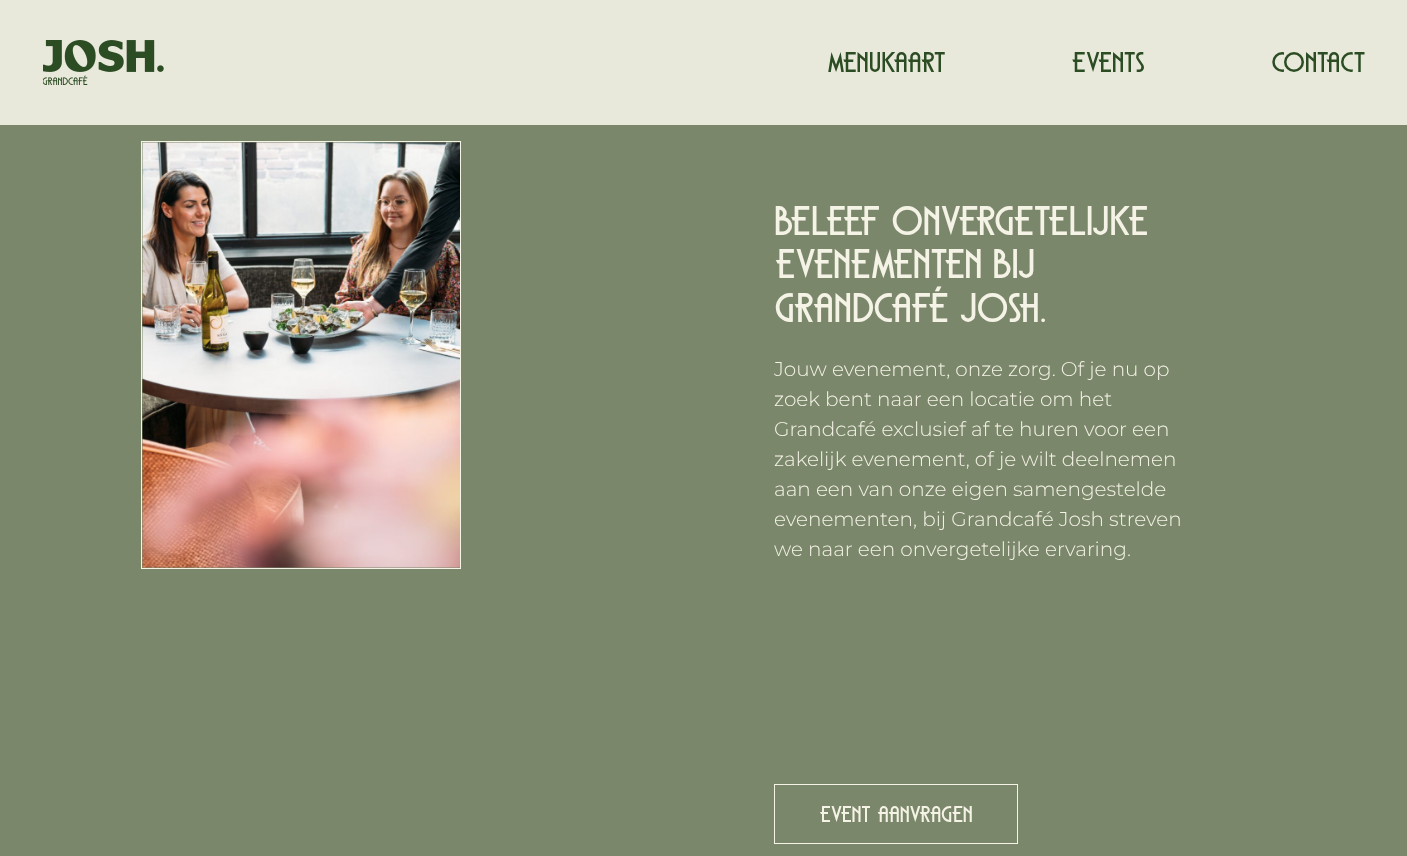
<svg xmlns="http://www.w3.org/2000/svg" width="1407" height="856">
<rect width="100%" height="100%" fill="#7b876b"/>
<rect width="1407" height="125" fill="#e9e9db"/>
<image x="43" y="40" width="121" height="45" href="media/1.png"/>
<text x="827" y="72" style="font-family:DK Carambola;font-size:25px;fill:#2c4d24">MENUKAART</text>
<text x="1071" y="72" style="font-family:DK Carambola;font-size:25px;fill:#2c4d24">EVENTS</text>
<text x="1271" y="72" style="font-family:DK Carambola;font-size:25px;fill:#2c4d24">CONTACT</text>
<rect x="141.5" y="141.5" width="319" height="427" fill="none" stroke="#f4f3e6"/>
<image x="142" y="142" width="318" height="426" href="media/2.png"/>
<text x="774" y="235" style="font-family:DK Carambola;font-size:36.25px;fill:#f4f3e6">Beleef Onvergetelijke</text>
<text x="774" y="278" style="font-family:DK Carambola;font-size:36.25px;fill:#f4f3e6">Evenementen bij</text>
<text x="774" y="322" style="font-family:DK Carambola;font-size:36.25px;fill:#f4f3e6">Grandcafé Josh.</text>
<text x="774" y="376" style="font-family:Montserrat;font-size:20px;font-weight:300;fill:#f4f3e6">Jouw evenement, onze zorg. Of je nu op</text>
<text x="774" y="406" style="font-family:Montserrat;font-size:20px;font-weight:300;fill:#f4f3e6">zoek bent naar een locatie om het</text>
<text x="774" y="436" style="font-family:Montserrat;font-size:20px;font-weight:300;fill:#f4f3e6">Grandcafé exclusief af te huren voor een</text>
<text x="774" y="466" style="font-family:Montserrat;font-size:20px;font-weight:300;fill:#f4f3e6">zakelijk evenement, of je wilt deelnemen</text>
<text x="774" y="496" style="font-family:Montserrat;font-size:20px;font-weight:300;fill:#f4f3e6">aan een van onze eigen samengestelde</text>
<text x="774" y="526" style="font-family:Montserrat;font-size:20px;font-weight:300;fill:#f4f3e6">evenementen, bij Grandcafé Josh streven</text>
<text x="774" y="556" style="font-family:Montserrat;font-size:20px;font-weight:300;fill:#f4f3e6">we naar een onvergetelijke ervaring.</text>
<rect x="774.5" y="784.5" width="243" height="59" fill="none" stroke="#f4f3e6"/>
<text x="819" y="822" style="font-family:DK Carambola;font-size:20px;fill:#f4f3e6">Event aanvragen</text>
</svg>
